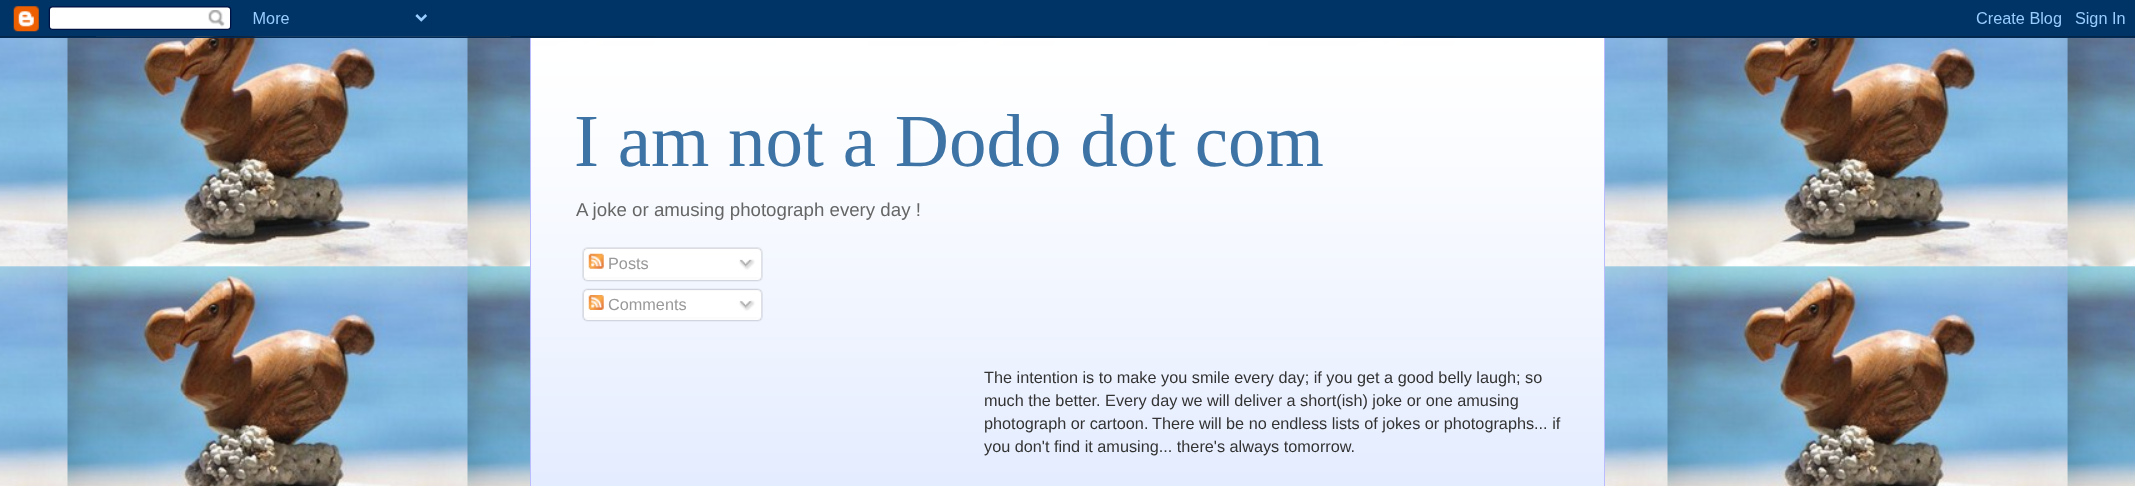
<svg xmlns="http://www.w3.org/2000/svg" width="2135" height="486">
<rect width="100%" height="100%" fill="#fff"/>
<image x="0" y="36" width="2135" height="450" href="media/1.png"/>
<image x="0" y="0" width="2135" height="38" href="media/2.png"/>
<rect x="531" y="46" width="1073" height="440" fill="#d4e1ff"/>
<image x="531" y="38" width="1073" height="448" href="media/3.png"/>
<rect x="1604" y="38" width="1" height="448" fill="#bbf"/>
<rect x="530" y="38" width="1" height="448" fill="#bbf"/>
<text x="574" y="166" style="font-family:Liberation Serif;font-size:75px;fill:#3d74a5">I am not a Dodo dot com</text>
<text x="576" y="216" style="font-family:Liberation Sans;font-size:18.7px;fill:#666">A joke or amusing photograph every day !</text>
<image x="582" y="247" width="181" height="31" href="media/4.png"/>
<image x="588" y="253" width="16" height="16" href="media/5.png"/>
<text x="608" y="269" style="font-family:Liberation Sans;font-size:16.25px;fill:#999">Posts</text>
<image x="739" y="259" width="16" height="11" href="media/6.png"/>
<image x="582" y="277" width="181" height="5" href="media/7.png"/>
<image x="582" y="288" width="181" height="30" href="media/8.png"/>
<image x="588" y="295" width="16" height="15" href="media/9.png"/>
<text x="608" y="310" style="font-family:Liberation Sans;font-size:16.25px;fill:#999">Comments</text>
<image x="739" y="300" width="16" height="11" href="media/10.png"/>
<image x="582" y="317" width="181" height="5" href="media/11.png"/>
<text x="984" y="383" style="font-family:Liberation Sans;font-size:16.25px;fill:#333">The intention is to make you smile every day; if you get a good belly laugh; so</text>
<text x="984" y="406" style="font-family:Liberation Sans;font-size:16.25px;fill:#333">much the better. Every day we will deliver a short(ish) joke or one amusing</text>
<text x="984" y="429" style="font-family:Liberation Sans;font-size:16.25px;fill:#333">photograph or cartoon.</text>
<text x="1152" y="429" style="font-family:Liberation Sans;font-size:16.25px;fill:#333">There will be no endless lists of jokes or photographs... if</text>
<text x="984" y="452" style="font-family:Liberation Sans;font-size:16.25px;fill:#333">you don't find it amusing... there's always tomorrow.</text>
</svg>
